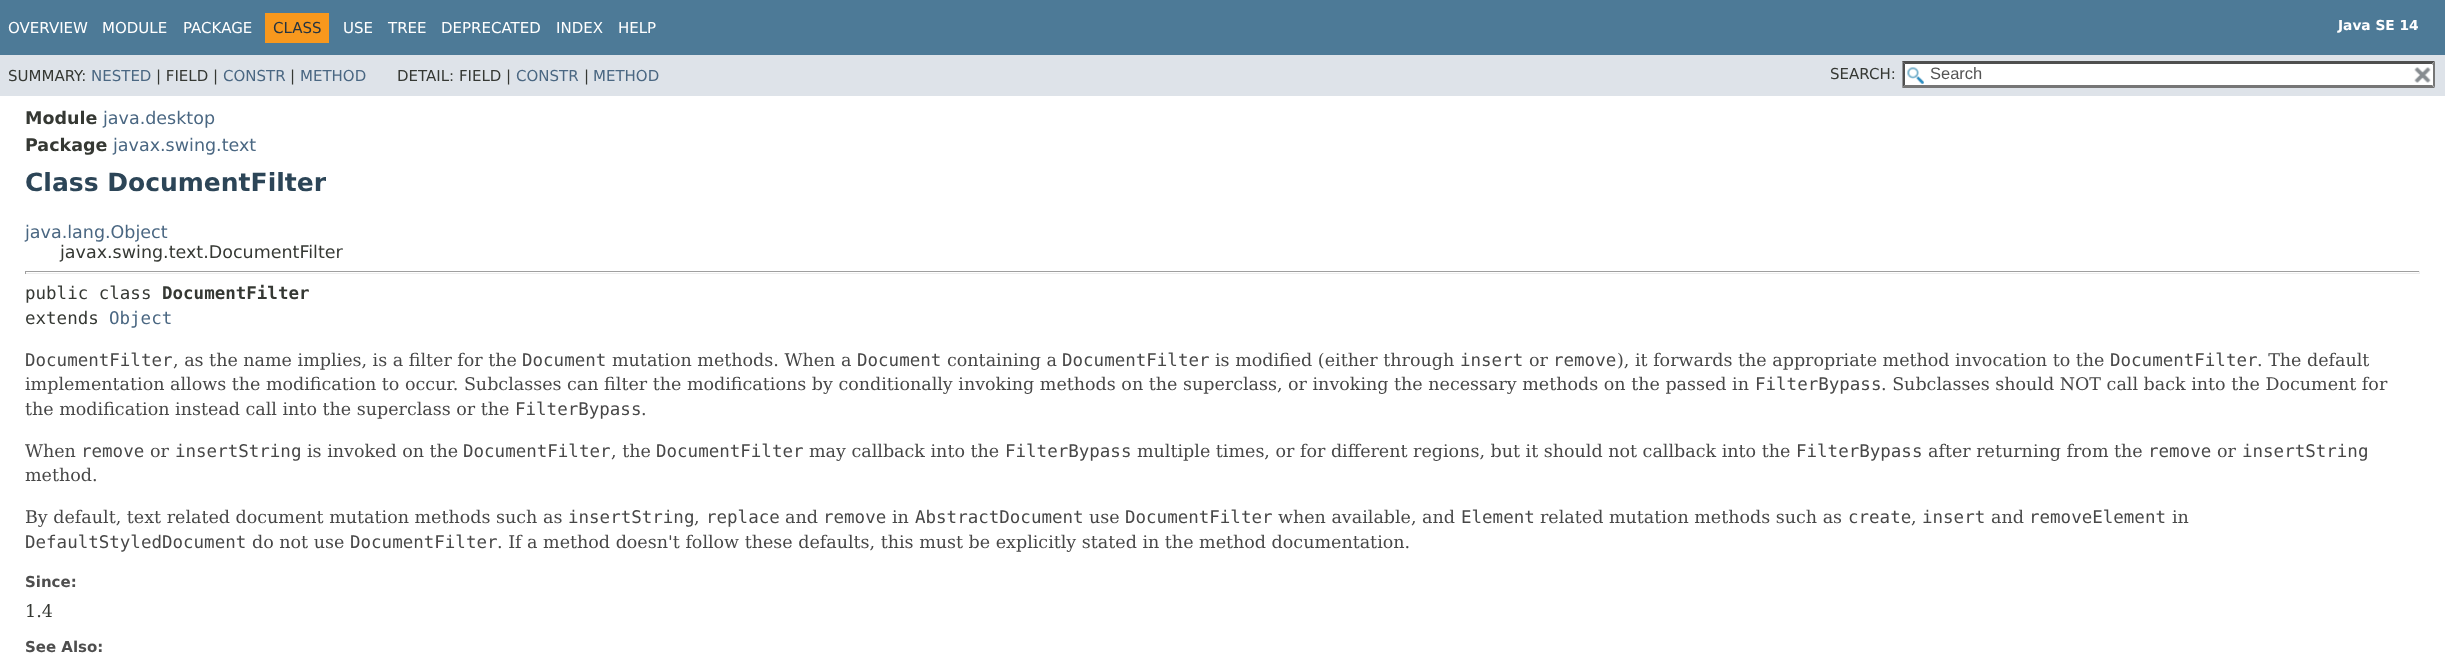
<svg xmlns="http://www.w3.org/2000/svg" width="2445" height="662">
<rect width="100%" height="100%" fill="#fff"/>
<rect width="2445" height="55" fill="#4d7a97"/>
<text x="8" y="33" style="font-family:DejaVu Sans;font-size:15px;fill:#fff">OVERVIEW</text>
<text x="102" y="33" style="font-family:DejaVu Sans;font-size:15px;fill:#fff">MODULE</text>
<text x="183" y="33" style="font-family:DejaVu Sans;font-size:15px;fill:#fff">PACKAGE</text>
<rect x="265" y="13" width="64" height="30" fill="#f8981d"/>
<text x="273" y="33" style="font-family:DejaVu Sans;font-size:15px;fill:#253441">CLASS</text>
<text x="343" y="33" style="font-family:DejaVu Sans;font-size:15px;fill:#fff">USE</text>
<text x="388" y="33" style="font-family:DejaVu Sans;font-size:15px;fill:#fff">TREE</text>
<text x="441" y="33" style="font-family:DejaVu Sans;font-size:15px;fill:#fff">DEPRECATED</text>
<text x="556" y="33" style="font-family:DejaVu Sans;font-size:15px;fill:#fff">INDEX</text>
<text x="618" y="33" style="font-family:DejaVu Sans;font-size:15px;fill:#fff">HELP</text>
<text x="2338" y="30" style="font-family:DejaVu Sans;font-size:13.75px;font-weight:bold;fill:#fff">Java SE 14</text>
<rect y="55" width="2445" height="41" fill="#dee3e9"/>
<text x="8" y="81" style="font-family:DejaVu Sans;font-size:15px;fill:#353833">SUMMARY:</text>
<text x="91" y="81" style="font-family:DejaVu Sans;font-size:15px;fill:#4a6782">NESTED</text>
<text x="156" y="81" style="font-family:DejaVu Sans;font-size:15px;fill:#353833">| FIELD |</text>
<text x="223" y="81" style="font-family:DejaVu Sans;font-size:15px;fill:#4a6782">CONSTR</text>
<text x="290" y="81" style="font-family:DejaVu Sans;font-size:15px;fill:#353833">|</text>
<text x="300" y="81" style="font-family:DejaVu Sans;font-size:15px;fill:#4a6782">METHOD</text>
<text x="397" y="81" style="font-family:DejaVu Sans;font-size:15px;fill:#353833">DETAIL: FIELD |</text>
<text x="516" y="81" style="font-family:DejaVu Sans;font-size:15px;fill:#4a6782">CONSTR</text>
<text x="584" y="81" style="font-family:DejaVu Sans;font-size:15px;fill:#353833">|</text>
<text x="593" y="81" style="font-family:DejaVu Sans;font-size:15px;fill:#4a6782">METHOD</text>
<text x="1830" y="79" style="font-family:DejaVu Sans;font-size:15px;fill:#353833">SEARCH:</text>
<rect x="1903" y="61" width="532" height="27" fill="#fff"/>
<image x="1907" y="67" width="17" height="17" href="media/1.png"/>
<path d="M1902 61h533l-3 3h-527z" fill="#4f4f4f"/>
<path d="M2435 61v26.5l-2.5-2.5v-21z" fill="#767676"/>
<path d="M2435 88h-533l3-3h527z" fill="#767676"/>
<path d="M1902.5 87.5v-26.5l2.5 3v21z" fill="#4f4f4f"/>
<text x="1930" y="79" style="font-family:Liberation Sans;font-size:16.5px;fill:#545454">Search</text>
<rect x="2432" y="65" width="1" height="20" fill="#fff"/>
<image x="2414" y="67" width="17" height="16" href="media/2.png"/>
<text x="25" y="124" style="font-family:DejaVu Sans;font-size:17.5px;font-weight:bold;fill:#353833">Module</text>
<text x="103" y="124" style="font-family:DejaVu Sans;font-size:17.5px;fill:#4a6782">java.desktop</text>
<text x="25" y="151" style="font-family:DejaVu Sans;font-size:17.5px;font-weight:bold;fill:#353833">Package</text>
<text x="113" y="151" style="font-family:DejaVu Sans;font-size:17.5px;fill:#4a6782">javax.swing.text</text>
<text x="25" y="191" style="font-family:DejaVu Sans;font-size:25px;font-weight:bold;fill:#2c4557">Class DocumentFilter</text>
<text x="25" y="238" style="font-family:DejaVu Sans;font-size:17.5px;fill:#4a6782">java.lang.Object</text>
<text x="60" y="258" style="font-family:DejaVu Sans;font-size:17.5px;fill:#353833">javax.swing.text.DocumentFilter</text>
<rect x="25" y="271" width="2395" height="1" fill="#9f9f9f"/>
<rect x="2419" y="271" width="1" height="3" fill="#eee"/>
<rect x="25" y="273" width="2395" height="1" fill="#eee"/>
<rect x="25" y="271" width="1" height="3" fill="#9f9f9f"/>
<text x="25" y="299" style="font-family:DejaVu Sans Mono;font-size:17.5px;fill:#353833">public class</text>
<text x="162" y="299" style="font-family:DejaVu Sans Mono;font-size:17.5px;font-weight:bold;fill:#353833">DocumentFilter</text>
<text x="25" y="324" style="font-family:DejaVu Sans Mono;font-size:17.5px;fill:#353833">extends</text>
<text x="109" y="324" style="font-family:DejaVu Sans Mono;font-size:17.5px;fill:#4a6782">Object</text>
<text x="25" y="366" style="font-family:DejaVu Sans Mono;font-size:17.5px;fill:#474747">DocumentFilter</text>
<text x="173" y="366" style="font-family:DejaVu Serif;font-size:17.5px;fill:#474747">, as the name implies, is a filter for the</text>
<text x="522" y="366" style="font-family:DejaVu Sans Mono;font-size:17.5px;fill:#474747">Document</text>
<text x="612" y="366" style="font-family:DejaVu Serif;font-size:17.5px;fill:#474747">mutation methods. When a</text>
<text x="857" y="366" style="font-family:DejaVu Sans Mono;font-size:17.5px;fill:#474747">Document</text>
<text x="947" y="366" style="font-family:DejaVu Serif;font-size:17.5px;fill:#474747">containing a</text>
<text x="1062" y="366" style="font-family:DejaVu Sans Mono;font-size:17.5px;fill:#474747">DocumentFilter</text>
<text x="1215" y="366" style="font-family:DejaVu Serif;font-size:17.5px;fill:#474747">is modified (either through</text>
<text x="1460" y="366" style="font-family:DejaVu Sans Mono;font-size:17.5px;fill:#474747">insert</text>
<text x="1529" y="366" style="font-family:DejaVu Serif;font-size:17.5px;fill:#474747">or</text>
<text x="1553" y="366" style="font-family:DejaVu Sans Mono;font-size:17.5px;fill:#474747">remove</text>
<text x="1617" y="366" style="font-family:DejaVu Serif;font-size:17.5px;fill:#474747">), it forwards the appropriate method invocation to the</text>
<text x="2110" y="366" style="font-family:DejaVu Sans Mono;font-size:17.5px;fill:#474747">DocumentFilter</text>
<text x="2257" y="366" style="font-family:DejaVu Serif;font-size:17.5px;fill:#474747">. The default</text>
<text x="25" y="390" style="font-family:DejaVu Serif;font-size:17.5px;fill:#474747">implementation allows the modification to occur. Subclasses can filter the modifications by conditionally invoking methods on the superclass, or invoking the necessary methods on the passed in</text>
<text x="1755" y="390" style="font-family:DejaVu Sans Mono;font-size:17.5px;fill:#474747">FilterBypass</text>
<text x="1881" y="390" style="font-family:DejaVu Serif;font-size:17.5px;fill:#474747">. Subclasses should NOT call back into the Document for</text>
<text x="25" y="415" style="font-family:DejaVu Serif;font-size:17.5px;fill:#474747">the modification instead call into the superclass or the</text>
<text x="515" y="415" style="font-family:DejaVu Sans Mono;font-size:17.5px;fill:#474747">FilterBypass</text>
<text x="641" y="415" style="font-family:DejaVu Serif;font-size:17.5px;fill:#474747">.</text>
<text x="25" y="457" style="font-family:DejaVu Serif;font-size:17.5px;fill:#474747">When</text>
<text x="81" y="457" style="font-family:DejaVu Sans Mono;font-size:17.5px;fill:#474747">remove</text>
<text x="150" y="457" style="font-family:DejaVu Serif;font-size:17.5px;fill:#474747">or</text>
<text x="175" y="457" style="font-family:DejaVu Sans Mono;font-size:17.5px;fill:#474747">insertString</text>
<text x="307" y="457" style="font-family:DejaVu Serif;font-size:17.5px;fill:#474747">is invoked on the</text>
<text x="463" y="457" style="font-family:DejaVu Sans Mono;font-size:17.5px;fill:#474747">DocumentFilter</text>
<text x="611" y="457" style="font-family:DejaVu Serif;font-size:17.5px;fill:#474747">, the</text>
<text x="656" y="457" style="font-family:DejaVu Sans Mono;font-size:17.5px;fill:#474747">DocumentFilter</text>
<text x="809" y="457" style="font-family:DejaVu Serif;font-size:17.5px;fill:#474747">may callback into the</text>
<text x="1005" y="457" style="font-family:DejaVu Sans Mono;font-size:17.5px;fill:#474747">FilterBypass</text>
<text x="1137" y="457" style="font-family:DejaVu Serif;font-size:17.5px;fill:#474747">multiple times, or for different regions, but it should not callback into the</text>
<text x="1796" y="457" style="font-family:DejaVu Sans Mono;font-size:17.5px;fill:#474747">FilterBypass</text>
<text x="1928" y="457" style="font-family:DejaVu Serif;font-size:17.5px;fill:#474747">after returning from the</text>
<text x="2148" y="457" style="font-family:DejaVu Sans Mono;font-size:17.5px;fill:#474747">remove</text>
<text x="2217" y="457" style="font-family:DejaVu Serif;font-size:17.5px;fill:#474747">or</text>
<text x="2242" y="457" style="font-family:DejaVu Sans Mono;font-size:17.5px;fill:#474747">insertString</text>
<text x="25" y="481" style="font-family:DejaVu Serif;font-size:17.5px;fill:#474747">method.</text>
<text x="25" y="523" style="font-family:DejaVu Serif;font-size:17.5px;fill:#474747">By default, text related document mutation methods such as</text>
<text x="568" y="523" style="font-family:DejaVu Sans Mono;font-size:17.5px;fill:#474747">insertString</text>
<text x="694" y="523" style="font-family:DejaVu Serif;font-size:17.5px;fill:#474747">,</text>
<text x="706" y="523" style="font-family:DejaVu Sans Mono;font-size:17.5px;fill:#474747">replace</text>
<text x="785" y="523" style="font-family:DejaVu Serif;font-size:17.5px;fill:#474747">and</text>
<text x="823" y="523" style="font-family:DejaVu Sans Mono;font-size:17.5px;fill:#474747">remove</text>
<text x="892" y="523" style="font-family:DejaVu Serif;font-size:17.5px;fill:#474747">in</text>
<text x="915" y="523" style="font-family:DejaVu Sans Mono;font-size:17.5px;fill:#474747">AbstractDocument</text>
<text x="1089" y="523" style="font-family:DejaVu Serif;font-size:17.5px;fill:#474747">use</text>
<text x="1125" y="523" style="font-family:DejaVu Sans Mono;font-size:17.5px;fill:#474747">DocumentFilter</text>
<text x="1278" y="523" style="font-family:DejaVu Serif;font-size:17.5px;fill:#474747">when available, and</text>
<text x="1461" y="523" style="font-family:DejaVu Sans Mono;font-size:17.5px;fill:#474747">Element</text>
<text x="1540" y="523" style="font-family:DejaVu Serif;font-size:17.5px;fill:#474747">related mutation methods such as</text>
<text x="1848" y="523" style="font-family:DejaVu Sans Mono;font-size:17.5px;fill:#474747">create</text>
<text x="1911" y="523" style="font-family:DejaVu Serif;font-size:17.5px;fill:#474747">,</text>
<text x="1922" y="523" style="font-family:DejaVu Sans Mono;font-size:17.5px;fill:#474747">insert</text>
<text x="1991" y="523" style="font-family:DejaVu Serif;font-size:17.5px;fill:#474747">and</text>
<text x="2029" y="523" style="font-family:DejaVu Sans Mono;font-size:17.5px;fill:#474747">removeElement</text>
<text x="2172" y="523" style="font-family:DejaVu Serif;font-size:17.5px;fill:#474747">in</text>
<text x="25" y="548" style="font-family:DejaVu Sans Mono;font-size:17.5px;fill:#474747">DefaultStyledDocument</text>
<text x="252" y="548" style="font-family:DejaVu Serif;font-size:17.5px;fill:#474747">do not use</text>
<text x="350" y="548" style="font-family:DejaVu Sans Mono;font-size:17.5px;fill:#474747">DocumentFilter</text>
<text x="497" y="548" style="font-family:DejaVu Serif;font-size:17.5px;fill:#474747">. If a method doesn't follow these defaults, this must be explicitly stated in the method documentation.</text>
<text x="25" y="587" style="font-family:DejaVu Sans;font-size:15px;font-weight:bold;fill:#4e4e4e">Since:</text>
<text x="25" y="617" style="font-family:DejaVu Serif;font-size:17.5px;fill:#353833">1.4</text>
<text x="25" y="652" style="font-family:DejaVu Sans;font-size:15px;font-weight:bold;fill:#4e4e4e">See Also:</text>
</svg>
